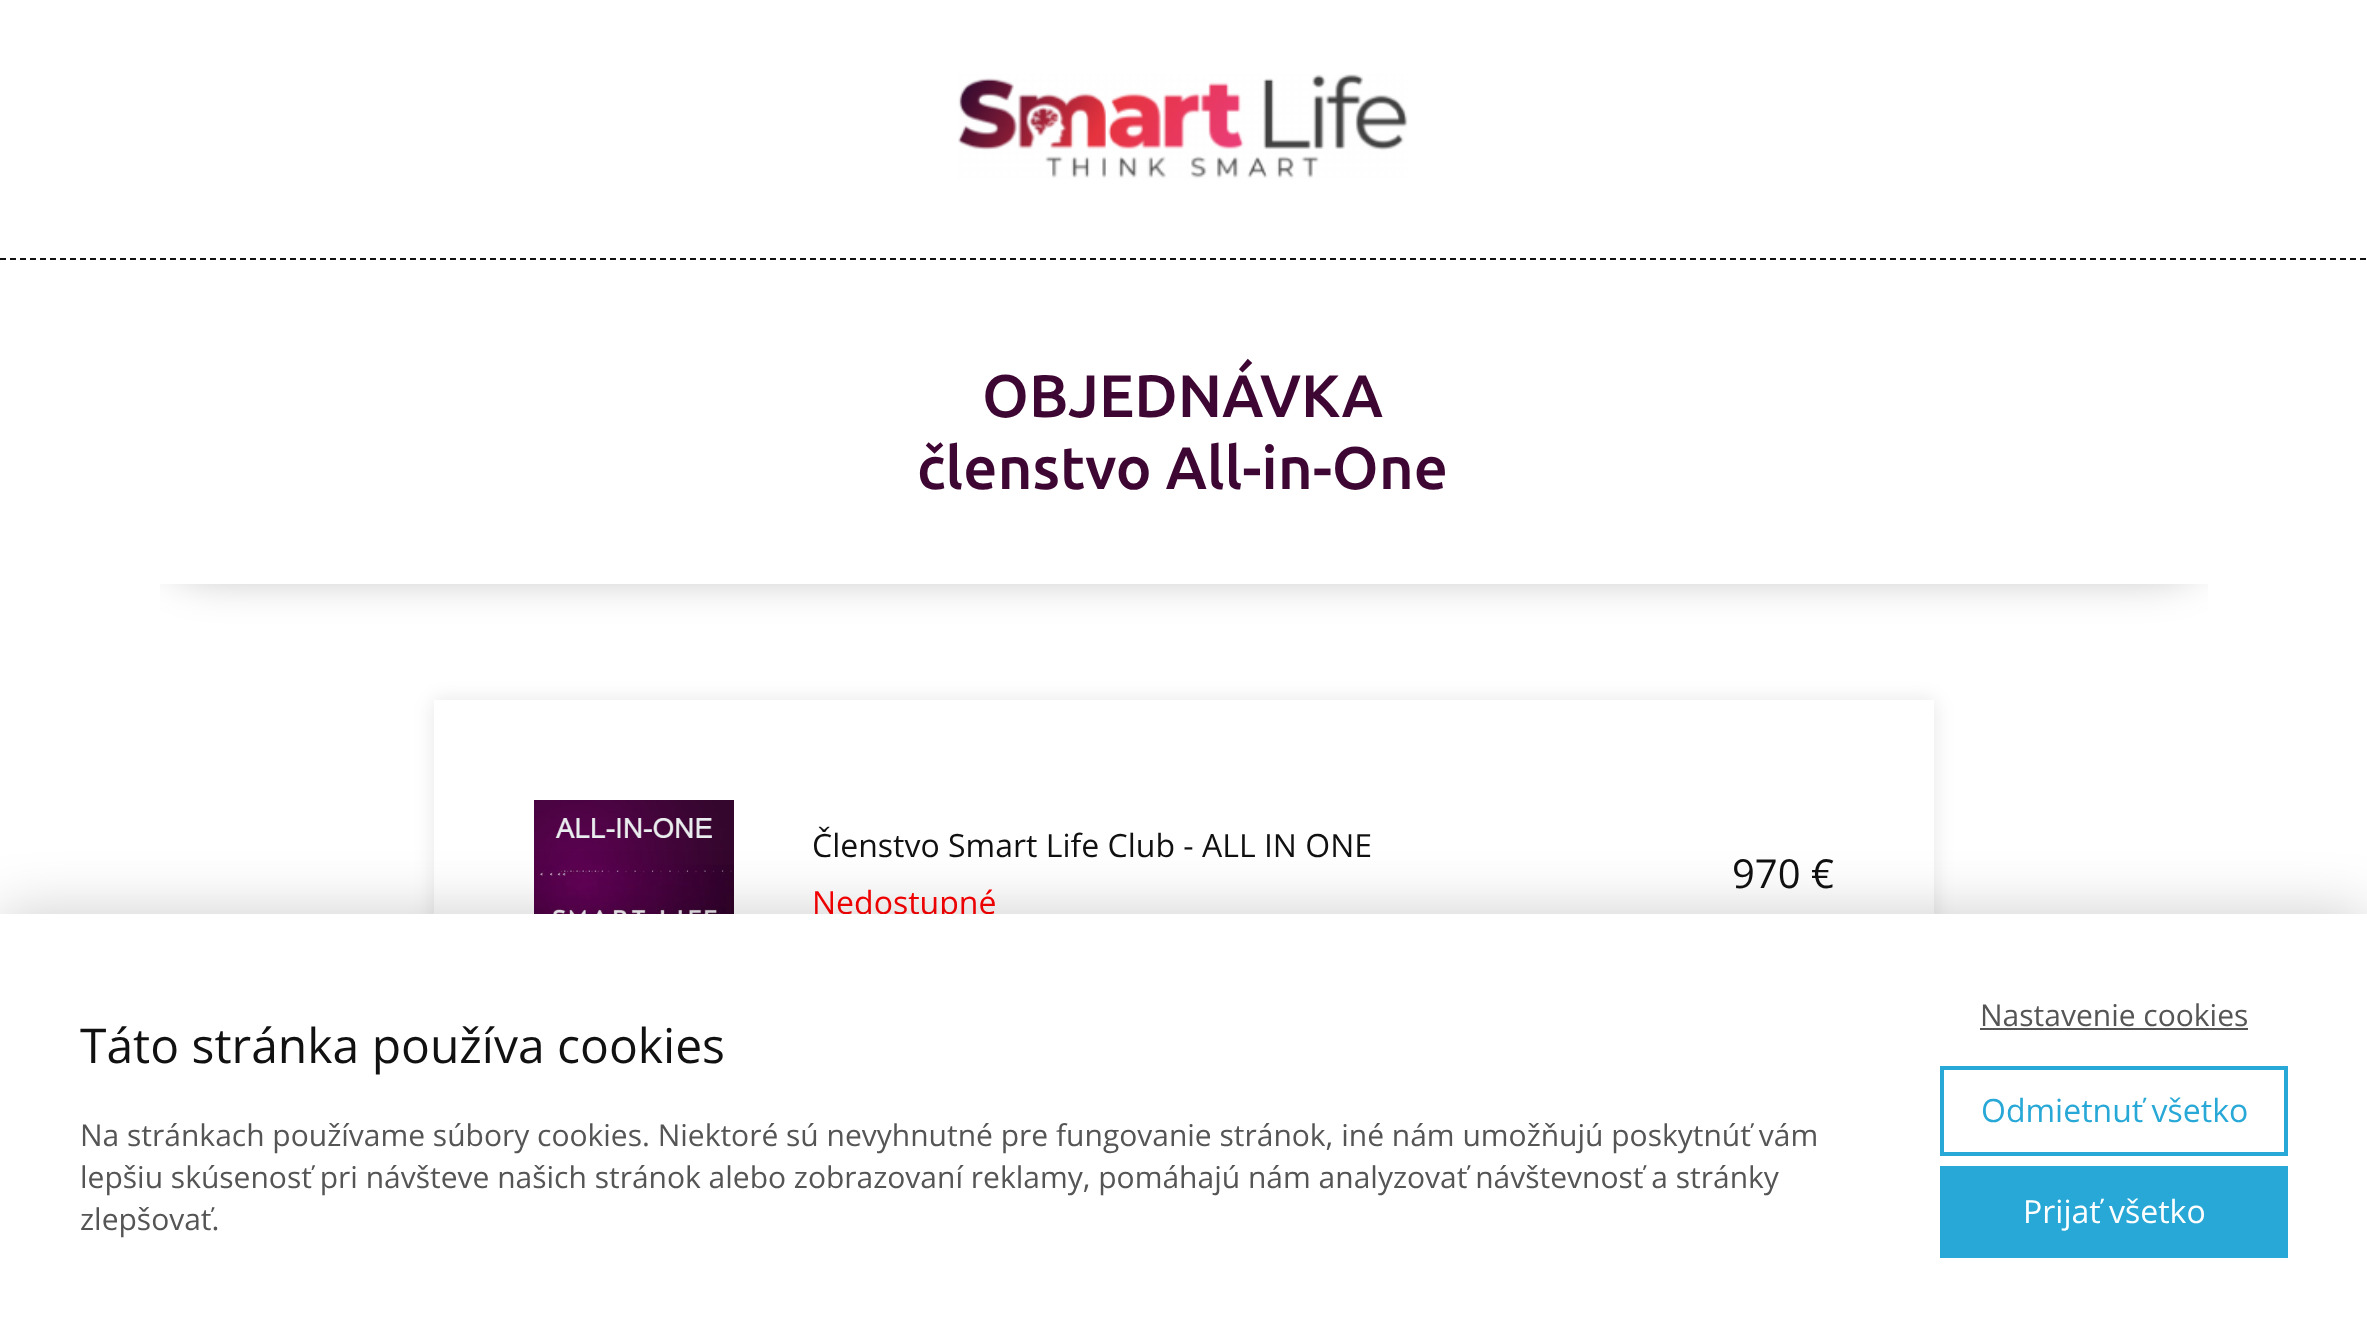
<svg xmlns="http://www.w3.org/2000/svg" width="2367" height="1337">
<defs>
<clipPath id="clip1"><rect x="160" y="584" width="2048" height="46"/></clipPath>
<clipPath id="clip2"><path d="M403 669h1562v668h-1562zm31 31h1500v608h-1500z" clip-rule="evenodd"/></clipPath>
</defs>
<rect width="100%" height="100%" fill="#fff"/>
<image x="958" y="74" width="450" height="105" href="media/1.png"/>
<path d="M0 259h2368" fill="none" stroke="#111" stroke-width="2" stroke-dasharray="6 4"/>
<text x="982" y="417" style="font-family:Ubuntu;font-size:60px;font-weight:500;fill:#3e0633">OBJEDNÁVKA</text>
<text x="917" y="489" style="font-family:Ubuntu;font-size:60px;font-weight:500;fill:#3e0633">členstvo All-in-One</text>
<g clip-path="url(#clip1)">
<rect x="160" y="474" width="2048" height="100" rx="50" fill="#0000004d" filter="blur(23px)"/>
</g>
<g clip-path="url(#clip2)">
<rect x="434" y="700" width="1500" height="608" fill="#0000001a" filter="blur(10px)"/>
</g>
<image x="534" y="800" width="200" height="114" href="media/2.png"/>
<text x="812" y="857" style="font-family:Open Sans;font-size:32px;fill:#111">Členstvo Smart Life Club - ALL IN ONE</text>
<text x="812" y="914" style="font-family:Open Sans;font-size:32px;fill:#f00">Nedostupné</text>
<text x="1732" y="888" style="font-family:Open Sans;font-size:40px;fill:#111">970 €</text>
<rect y="914" width="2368" height="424" fill="#00000033" filter="blur(30px)"/>
<rect y="914" width="2367" height="423" fill="#fff"/>
<text x="80" y="1063" style="font-family:Open Sans;font-size:48px;fill:#111">Táto stránka používa cookies</text>
<text x="80" y="1146" style="font-family:Open Sans;font-size:30px;fill:#555">Na stránkach používame súbory cookies. Niektoré sú nevyhnutné pre fungovanie stránok, iné nám umožňujú poskytnúť vám</text>
<text x="80" y="1188" style="font-family:Open Sans;font-size:30px;fill:#555">lepšiu skúsenosť pri návšteve našich stránok alebo zobrazovaní reklamy, pomáhajú nám analyzovať návštevnosť a stránky</text>
<text x="80" y="1230" style="font-family:Open Sans;font-size:30px;fill:#555">zlepšovať.</text>
<text x="1980" y="1026" style="font-family:Open Sans;font-size:30px;fill:#555">Nastavenie cookies</text>
<rect x="1980" y="1028" width="268" height="2" fill="#555"/>
<rect x="1942" y="1068" width="344" height="86" fill="none" stroke="#27a8d7" stroke-width="4"/>
<text x="1981" y="1122" style="font-family:Open Sans;font-size:32px;fill:#27a8d7">Odmietnuť všetko</text>
<rect x="1940" y="1166" width="348" height="92" fill="#27a8d7"/>
<text x="2023" y="1223" style="font-family:Open Sans;font-size:32px;fill:#fff">Prijať všetko</text>
</svg>
